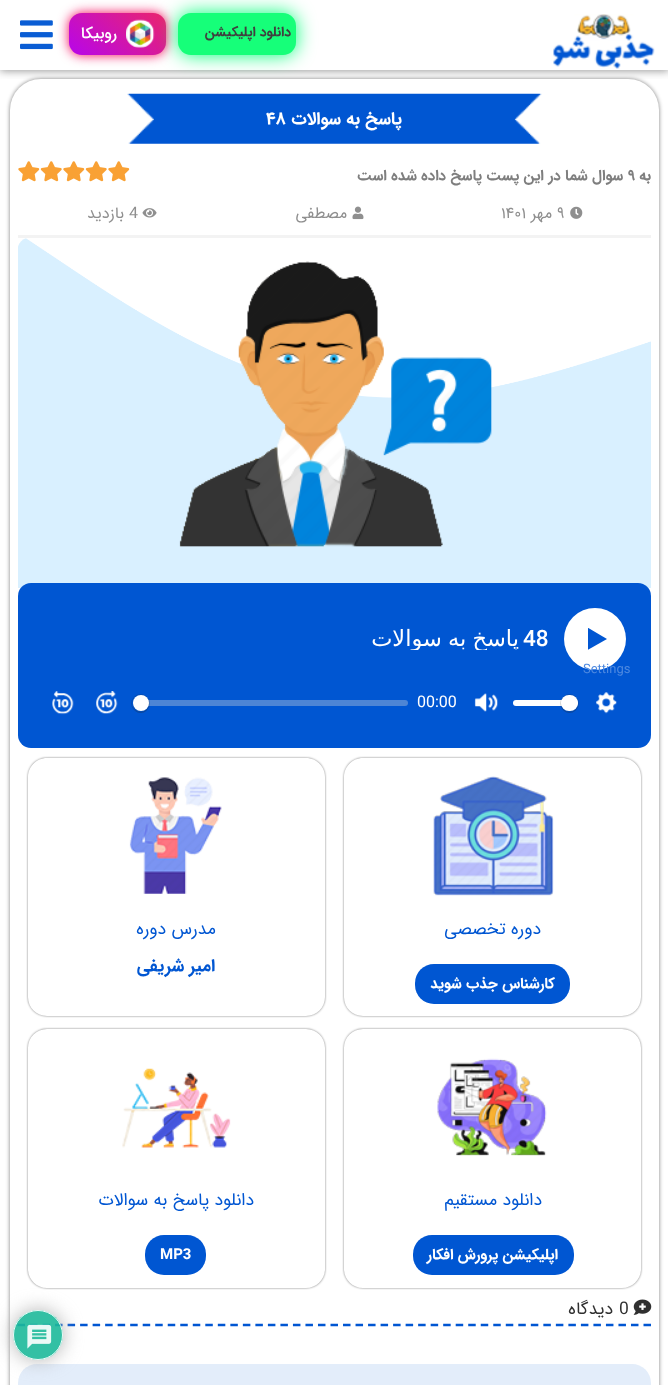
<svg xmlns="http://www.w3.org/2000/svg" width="668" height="1385">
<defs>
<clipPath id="clip1"><rect x="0" y="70" width="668" height="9"/></clipPath>
<linearGradient id="g1" gradientUnits="userSpaceOnUse" x1="148" y1="-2.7" x2="87" y2="70"><stop offset="0" stop-color="#eb256b"/><stop offset="1" stop-color="#b705eb"/></linearGradient>
<clipPath id="clip2"><rect x="588" y="628" width="20" height="22"/></clipPath>
<clipPath id="clip3"><rect x="371" y="628" width="178" height="22"/></clipPath>
<clipPath id="clip4"><path d="M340 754h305v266h-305zm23 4h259c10.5 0 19 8.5 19 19v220c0 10.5-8.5 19-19 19h-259c-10.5 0-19-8.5-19-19v-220c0-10.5 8.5-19 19-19z" clip-rule="evenodd"/></clipPath>
<clipPath id="clip5"><path d="M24 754h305v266h-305zm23 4h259c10.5 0 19 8.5 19 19v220c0 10.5-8.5 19-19 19h-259c-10.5 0-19-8.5-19-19v-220c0-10.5 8.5-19 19-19z" clip-rule="evenodd"/></clipPath>
<clipPath id="clip6"><path d="M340 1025h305v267h-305zm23 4h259c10.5 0 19 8.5 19 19v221c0 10.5-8.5 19-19 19h-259c-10.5 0-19-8.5-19-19v-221c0-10.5 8.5-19 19-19z" clip-rule="evenodd"/></clipPath>
<clipPath id="clip7"><path d="M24 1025h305v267h-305zm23 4h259c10.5 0 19 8.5 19 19v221c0 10.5-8.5 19-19 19h-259c-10.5 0-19-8.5-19-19v-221c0-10.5 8.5-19 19-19z" clip-rule="evenodd"/></clipPath>
<clipPath id="clip8"><path d="M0 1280h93v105h-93zm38 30c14 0 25 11 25 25c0 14-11 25-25 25c-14 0-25-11-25-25c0-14 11-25 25-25z" clip-rule="evenodd"/></clipPath>
</defs>
<rect width="100%" height="100%" fill="#fff"/>
<rect x="10" y="79" width="649" height="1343" rx="31" fill="#00000080" filter="blur(2px)"/>
<rect x="10" y="79" width="649" height="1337" rx="31" fill="#fff"/>
<g clip-path="url(#clip1)">
<rect y="1" width="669" height="70" fill="#989898" filter="blur(4px)"/>
</g>
<image x="553" y="14" width="102" height="55" href="media/1.png"/>
<image x="20" y="20" width="33" height="30" href="media/3.png"/>
<rect x="69" y="13" width="97" height="42" rx="13" fill="#f40056" filter="blur(6px)"/>
<rect x="69" y="13" width="97" height="42" rx="13" fill="url(#g1)"/>
<image x="126" y="19" width="29" height="29" href="media/2.png"/>
<rect x="178" y="13" width="118" height="42" rx="13" fill="#00ff78" filter="blur(9.5px)"/>
<rect x="178" y="13" width="118" height="42" rx="13" fill="#16ff79"/>
<text x="291" y="36" style="font-family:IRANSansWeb;font-size:13.75px;font-weight:bold;direction:rtl;fill:#403f3f">دانلود اپلیکیشن</text>
<text x="117" y="38" style="font-family:IRANSansWeb;font-size:16px;font-weight:500;direction:rtl;fill:#fff">روبیکا</text>
<rect x="18" y="235" width="633" height="3" fill="#f3f3f3"/>
<image x="127" y="93" width="415" height="51" href="media/4.png"/>
<text x="402" y="124" style="font-family:IRANSansWeb;font-size:17.5px;font-weight:bold;direction:rtl;fill:#fff">پاسخ به سوالات</text>
<text x="266" y="124" style="font-family:IRANSansWeb;font-size:17.5px;font-weight:bold;fill:#fff">۴۸</text>
<text x="651" y="180" style="font-family:IRANSansWeb;font-size:15px;font-weight:bold;direction:rtl;fill:#7e7e7e">به</text>
<text x="628" y="180" style="font-family:IRANSansWeb;font-size:15px;font-weight:bold;fill:#7e7e7e">۹</text>
<text x="623" y="180" style="font-family:IRANSansWeb;font-size:15px;font-weight:bold;direction:rtl;fill:#7e7e7e">سوال شما در این پست پاسخ داده شده است</text>
<image x="108" y="161" width="22" height="21" href="media/5.png"/>
<image x="85" y="161" width="22" height="21" href="media/6.png"/>
<image x="63" y="161" width="22" height="21" href="media/5.png"/>
<image x="40" y="161" width="22" height="21" href="media/6.png"/>
<image x="18" y="161" width="22" height="21" href="media/5.png"/>
<image x="570" y="206" width="13" height="13" href="media/7.png"/>
<text x="557" y="218" style="font-family:IRANSansWeb;font-size:16px;fill:#8f8f8f">۹</text>
<text x="552" y="218" style="font-family:IRANSansWeb;font-size:16px;direction:rtl;fill:#8f8f8f">مهر</text>
<text x="501" y="218" style="font-family:IRANSansWeb;font-size:16px;fill:#8f8f8f">۱۴۰۱</text>
<image x="352" y="206" width="12" height="14" href="media/8.png"/>
<text x="347" y="218" style="font-family:IRANSansWeb;font-size:16px;direction:rtl;fill:#8f8f8f">مصطفی</text>
<image x="142" y="208" width="15" height="10" href="media/9.png"/>
<text x="129" y="218" style="font-family:IRANSansWeb;font-size:16px;fill:#8f8f8f">4</text>
<text x="124" y="218" style="font-family:IRANSansWeb;font-size:16px;direction:rtl;fill:#8f8f8f">بازدید</text>
<image x="18" y="238" width="633" height="350" href="media/10.png"/>
<image x="179" y="261" width="313" height="286" href="media/11.png"/>
<rect x="18" y="583" width="633" height="165" rx="13" fill="#0056d2"/>
<circle cx="595" cy="639" r="31" fill="#fff"/>
<g clip-path="url(#clip2)">
<path d="M607 639l-19.5 11v-22.5z" fill="#0056d2"/>
</g>
<text x="523" y="646" style="font-family:Roboto;font-size:22.5px;font-weight:500;fill:#fff">48</text>
<g clip-path="url(#clip3)">
<text x="519" y="646" word-spacing="-1" style="font-family:DejaVu Sans;font-size:22.5px;direction:rtl;fill:#fff">پاسخ به سوالات</text>
</g>
<text x="583" y="673" style="font-family:Roboto;font-size:13px;fill:#4d89e0">Settings</text>
<image x="596" y="692" width="21" height="22" href="media/12.png"/>
<rect x="513" y="700" width="65" height="6" rx="3" fill="#fff"/>
<circle cx="569.5" cy="703.5" r="9" fill="none" stroke="#23282f33"/>
<rect x="561" y="696" width="17" height="17" rx="8.5" fill="#23282f26" filter="blur(0.5px)"/>
<rect x="561" y="695" width="17" height="16" rx="8" fill="#fff"/>
<image x="474" y="693" width="24" height="19" href="media/13.png"/>
<text x="417" y="707" style="font-family:Roboto;font-size:16px;fill:#fff">00:00</text>
<rect x="133" y="700" width="275" height="6" rx="3" fill="#dcdcdc59"/>
<circle cx="140.5" cy="703.5" r="9" fill="none" stroke="#23282f33"/>
<rect x="133" y="696" width="16" height="17" rx="8" fill="#23282f26" filter="blur(0.5px)"/>
<path d="M136 690.5h8l-4 4z" fill="#0056d2"/>
<circle cx="141" cy="703" r="8" fill="#fff"/>
<image x="96" y="691" width="22" height="23" href="media/14.png"/>
<image x="52" y="691" width="22" height="24" href="media/15.png"/>
<g clip-path="url(#clip4)">
<rect x="344" y="758" width="297" height="258" rx="19" fill="#00000080" filter="blur(1px)"/>
</g>
<image x="433" y="776" width="121" height="120" href="media/16.png"/>
<text x="541" y="934" style="font-family:IRANSansWeb;font-size:17.5px;direction:rtl;fill:#0056d2">دوره تخصصی</text>
<rect x="415" y="964" width="155" height="40" rx="19" fill="#0056d2"/>
<text x="555" y="988" style="font-family:IRANSansWeb;font-size:15px;font-weight:bold;direction:rtl;fill:#fff">کارشناس جذب شوید</text>
<g clip-path="url(#clip5)">
<rect x="28" y="758" width="297" height="258" rx="19" fill="#00000080" filter="blur(1px)"/>
</g>
<image x="129" y="777" width="93" height="117" href="media/17.png"/>
<text x="216" y="934" style="font-family:IRANSansWeb;font-size:17.5px;direction:rtl;fill:#0056d2">مدرس دوره</text>
<text x="215" y="971" style="font-family:IRANSansWeb;font-size:17.5px;font-weight:bold;direction:rtl;fill:#0056d2">امیر شریفی</text>
<g clip-path="url(#clip6)">
<rect x="344" y="1029" width="297" height="259" rx="19" fill="#00000080" filter="blur(1px)"/>
</g>
<image x="437" y="1058" width="110" height="98" href="media/18.png"/>
<text x="542" y="1205" style="font-family:IRANSansWeb;font-size:17.5px;direction:rtl;fill:#0056d2">دانلود مستقیم</text>
<rect x="413" y="1235" width="161" height="40" rx="19" fill="#0056d2"/>
<text x="558" y="1259" style="font-family:IRANSansWeb;font-size:15px;font-weight:bold;direction:rtl;fill:#fff">اپلیکیشن پرورش افکار</text>
<g clip-path="url(#clip7)">
<rect x="28" y="1029" width="297" height="259" rx="19" fill="#00000080" filter="blur(1px)"/>
</g>
<image x="122" y="1068" width="109" height="80" href="media/19.png"/>
<text x="254" y="1205" style="font-family:IRANSansWeb;font-size:17.5px;direction:rtl;fill:#0056d2">دانلود پاسخ به سوالات</text>
<rect x="145" y="1235" width="61" height="40" rx="19" fill="#0056d2"/>
<text x="160" y="1259" style="font-family:IRANSansWeb;font-size:15px;font-weight:bold;fill:#fff">MP3</text>
<path d="M17.5 1325h633.5" fill="none" stroke="#0056d2" stroke-width="2.5" stroke-dasharray="7.5 5.02"/>
<image x="633" y="1299" width="19" height="16" href="media/20.png"/>
<text x="619" y="1314" style="font-family:IRANSansWeb;font-size:17.5px;fill:#303030">0</text>
<text x="613" y="1314" style="font-family:IRANSansWeb;font-size:17.5px;direction:rtl;fill:#303030">دیدگاه</text>
<rect x="18" y="1364" width="633" height="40" rx="19" fill="#e3edfa"/>
<g clip-path="url(#clip8)">
<rect x="13" y="1310" width="50" height="50" rx="25" fill="#aaaaaae6" filter="blur(9.5px)"/>
</g>
<circle cx="38" cy="1335" r="25" fill="#1db99ae6"/>
<circle cx="38" cy="1335" r="24.5" fill="none" stroke="#ffffffe6"/>
<image x="27" y="1324" width="25" height="25" href="media/21.png"/>
</svg>
